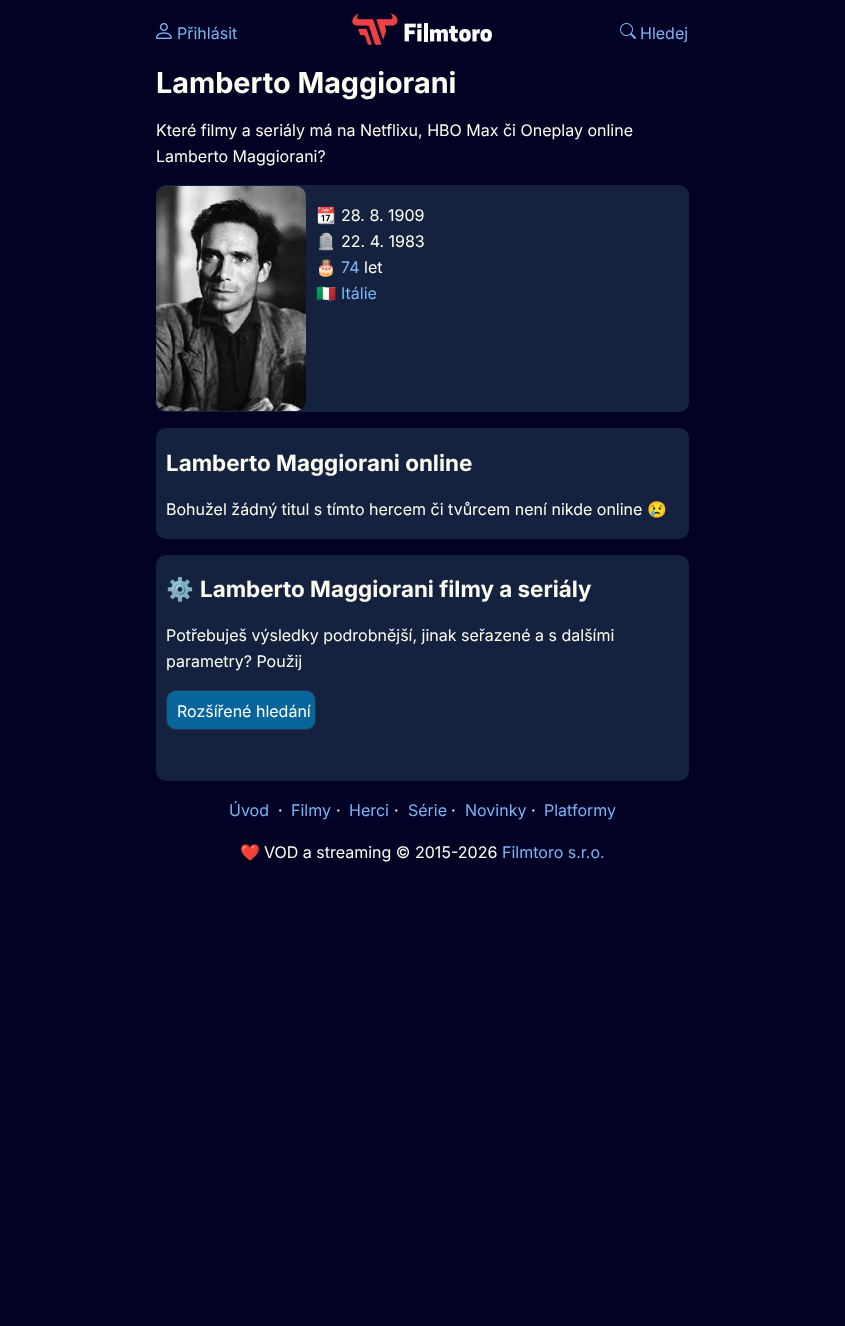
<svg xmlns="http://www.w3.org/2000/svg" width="845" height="1326">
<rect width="100%" height="100%" fill="#020324"/>
<image x="155" y="23" width="17" height="16" href="media/1.png"/>
<text x="177" y="39" style="font-family:Inter;font-size:16px;fill:#7bb5f5">Přihlásit</text>
<image x="352" y="13" width="140" height="32" href="media/2.png"/>
<image x="620" y="23" width="16" height="16" href="media/3.png"/>
<text x="640" y="39" style="font-family:Inter;font-size:16px;fill:#7bb5f5">Hledej</text>
<text x="156" y="93" style="font-family:Inter;font-size:28.75px;font-weight:bold;fill:#fdfdf1">Lamberto Maggiorani</text>
<text x="156" y="136" style="font-family:Inter;font-size:16px;fill:#fdfdf1">Které filmy a seriály má na Netflixu, HBO Max či Oneplay online</text>
<text x="156" y="162" style="font-family:Inter;font-size:16px;fill:#fdfdf1">Lamberto Maggiorani?</text>
<rect x="156" y="185" width="533" height="227" rx="10" fill="#142240"/>
<image x="156" y="186" width="150" height="225" href="media/4.png"/>
<text x="316" y="221" style="font-family:Noto Color Emoji;font-size:16px;fill:#fdfdf1">📆</text>
<text x="341" y="221" style="font-family:Inter;font-size:16px;fill:#fdfdf1">28. 8. 1909</text>
<text x="316" y="247" style="font-family:Noto Color Emoji;font-size:16px;fill:#fdfdf1">🪦</text>
<text x="341" y="247" style="font-family:Inter;font-size:16px;fill:#fdfdf1">22. 4. 1983</text>
<text x="316" y="273" style="font-family:Noto Color Emoji;font-size:16px;fill:#fdfdf1">🎂</text>
<text x="341" y="273" style="font-family:Inter;font-size:16px;fill:#7bb5f5">74</text>
<text x="364" y="273" style="font-family:Inter;font-size:16px;fill:#fdfdf1">let</text>
<text x="316" y="299" style="font-family:Noto Color Emoji;font-size:16px;fill:#fdfdf1">🇮🇹</text>
<text x="341" y="299" style="font-family:Inter;font-size:16px;fill:#7bb5f5">Itálie</text>
<rect x="156" y="428" width="533" height="111" rx="10" fill="#142240"/>
<text x="166" y="471" style="font-family:Inter;font-size:22.4px;font-weight:bold;fill:#fdfdf1">Lamberto Maggiorani online</text>
<text x="166" y="515" style="font-family:Inter;font-size:16px;fill:#fdfdf1">Bohužel žádný titul s tímto hercem či tvůrcem není nikde online</text>
<text x="647" y="515" style="font-family:Noto Color Emoji;font-size:16px;fill:#fdfdf1">😢</text>
<rect x="156" y="555" width="533" height="226" rx="10" fill="#142240"/>
<text x="166" y="597" style="font-family:Noto Color Emoji;font-size:22.4px;font-weight:bold;fill:#fdfdf1">⚙️</text>
<text x="200" y="597" style="font-family:Inter;font-size:22.4px;font-weight:bold;fill:#fdfdf1">Lamberto Maggiorani filmy a seriály</text>
<text x="166" y="641" style="font-family:Inter;font-size:16px;fill:#fdfdf1">Potřebuješ výsledky podrobnější, jinak seřazené a s dalšími</text>
<text x="166" y="667" style="font-family:Inter;font-size:16px;fill:#fdfdf1">parametry? Použij</text>
<rect x="166.5" y="690.5" width="149" height="39" rx="9.5" fill="#07659c" stroke="#26334f"/>
<text x="177" y="717" style="font-family:Inter;font-size:16px;fill:#fff">Rozšířené hledání</text>
<text x="229" y="816" style="font-family:Inter;font-size:16px;fill:#7bb5f5">Úvod</text>
<text x="278" y="816" style="font-family:Inter;font-size:16px;fill:#fdfdf1">·</text>
<text x="291" y="816" style="font-family:Inter;font-size:16px;fill:#7bb5f5">Filmy</text>
<text x="336" y="816" style="font-family:Inter;font-size:16px;fill:#fdfdf1">·</text>
<text x="349" y="816" style="font-family:Inter;font-size:16px;fill:#7bb5f5">Herci</text>
<text x="394" y="816" style="font-family:Inter;font-size:16px;fill:#fdfdf1">·</text>
<text x="408" y="816" style="font-family:Inter;font-size:16px;fill:#7bb5f5">Série</text>
<text x="451" y="816" style="font-family:Inter;font-size:16px;fill:#fdfdf1">·</text>
<text x="465" y="816" style="font-family:Inter;font-size:16px;fill:#7bb5f5">Novinky</text>
<text x="531" y="816" style="font-family:Inter;font-size:16px;fill:#fdfdf1">·</text>
<text x="544" y="816" style="font-family:Inter;font-size:16px;fill:#7bb5f5">Platformy</text>
<text x="240" y="858" style="font-family:Noto Color Emoji;font-size:16px;fill:#fdfdf1">❤️</text>
<text x="264" y="858" style="font-family:Inter;font-size:16px;fill:#fdfdf1">VOD a streaming © 2015-2026</text>
<text x="502" y="858" style="font-family:Inter;font-size:16px;fill:#7bb5f5">Filmtoro s.r.o.</text>
</svg>
